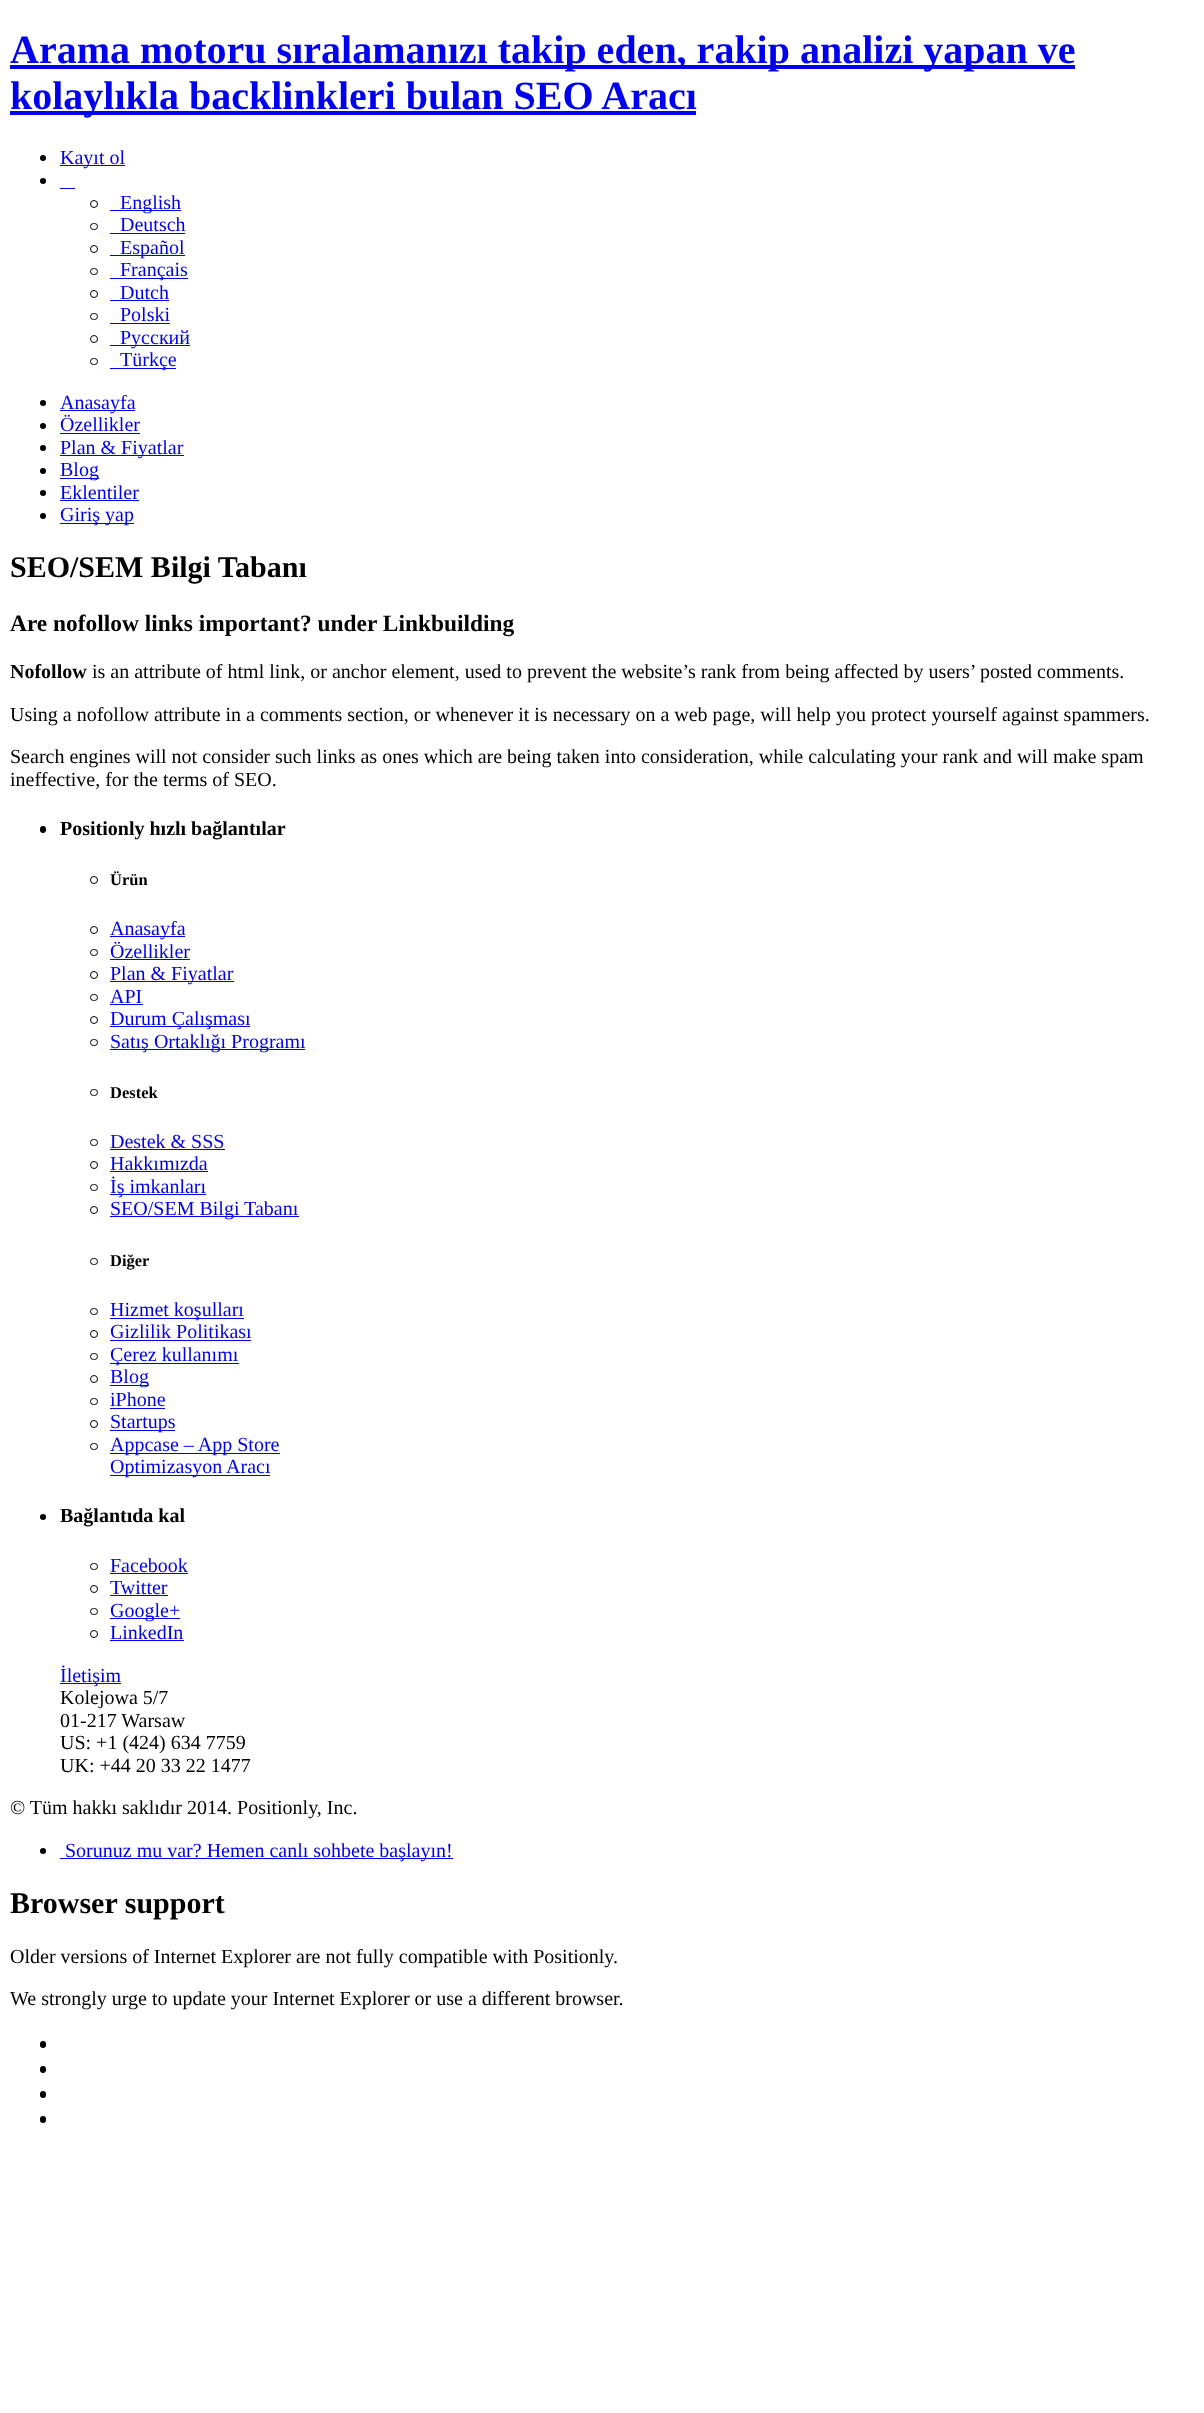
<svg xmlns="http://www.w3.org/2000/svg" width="1204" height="2413">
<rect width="100%" height="100%" fill="#fff"/>
<rect x="10" y="65" width="1065" height="4" fill="#00e"/>
<text x="10" y="63" style="font-family:Liberation Serif;font-size:40px;font-weight:bold;fill:#00e">Arama motoru sıralamanızı takip eden, rakip analizi yapan ve</text>
<rect x="10" y="111" width="686" height="4" fill="#00e"/>
<text x="10" y="109" style="font-family:Liberation Serif;font-size:40px;font-weight:bold;fill:#00e">kolaylıkla backlinkleri bulan SEO Aracı</text>
<circle cx="43" cy="158" r="3" fill="#000"/>
<rect x="60" y="165" width="65" height="1" fill="#00e"/>
<text x="60" y="164" style="font-family:Liberation Serif;font-size:20px;fill:#00e">Kayıt ol</text>
<circle cx="43" cy="181" r="3" fill="#000"/>
<rect x="60" y="188" width="15" height="1" fill="#00e"/>
<circle cx="94" cy="204" r="3.5" fill="none" stroke="#000"/>
<rect x="110" y="210" width="71" height="1" fill="#00e"/>
<text x="120" y="209" style="font-family:Liberation Serif;font-size:20px;fill:#00e">English</text>
<rect x="90.5" y="223.5" width="7" height="6" rx="3" fill="none" stroke="#000"/>
<text x="120" y="231" style="font-family:Liberation Serif;font-size:20px;fill:#00e">Deutsch</text>
<rect x="110" y="233" width="75" height="1" fill="#00e"/>
<circle cx="94" cy="249" r="3.5" fill="none" stroke="#000"/>
<rect x="110" y="255" width="75" height="1" fill="#00e"/>
<text x="120" y="254" style="font-family:Liberation Serif;font-size:20px;fill:#00e">Español</text>
<rect x="90.5" y="268.5" width="7" height="6" rx="3" fill="none" stroke="#000"/>
<rect x="110" y="278" width="78" height="1" fill="#00e"/>
<text x="120" y="276" style="font-family:Liberation Serif;font-size:20px;fill:#00e">Français</text>
<circle cx="94" cy="294" r="3.5" fill="none" stroke="#000"/>
<text x="120" y="299" style="font-family:Liberation Serif;font-size:20px;fill:#00e">Dutch</text>
<rect x="110" y="300" width="59" height="1" fill="#00e"/>
<rect x="90.5" y="313.5" width="7" height="6" rx="3" fill="none" stroke="#000"/>
<text x="120" y="321" style="font-family:Liberation Serif;font-size:20px;fill:#00e">Polski</text>
<rect x="110" y="323" width="60" height="1" fill="#00e"/>
<circle cx="94" cy="339" r="3.5" fill="none" stroke="#000"/>
<rect x="110" y="345" width="80" height="1" fill="#00e"/>
<text x="120" y="344" style="font-family:Liberation Serif;font-size:20px;fill:#00e">Pусский</text>
<rect x="90.5" y="358.5" width="7" height="6" rx="3" fill="none" stroke="#000"/>
<rect x="110" y="368" width="66" height="1" fill="#00e"/>
<text x="120" y="366" style="font-family:Liberation Serif;font-size:20px;fill:#00e">Türkçe</text>
<circle cx="43" cy="403" r="3" fill="#000"/>
<rect x="60" y="410" width="75" height="1" fill="#00e"/>
<text x="60" y="409" style="font-family:Liberation Serif;font-size:20px;fill:#00e">Anasayfa</text>
<circle cx="43" cy="426" r="3" fill="#000"/>
<text x="60" y="431" style="font-family:Liberation Serif;font-size:20px;fill:#00e">Özellikler</text>
<rect x="60" y="433" width="80" height="1" fill="#00e"/>
<circle cx="43" cy="448" r="3" fill="#000"/>
<rect x="60" y="455" width="124" height="1" fill="#00e"/>
<text x="60" y="454" style="font-family:Liberation Serif;font-size:20px;fill:#00e">Plan &amp; Fiyatlar</text>
<circle cx="43" cy="471" r="3" fill="#000"/>
<rect x="60" y="478" width="39" height="1" fill="#00e"/>
<text x="60" y="476" style="font-family:Liberation Serif;font-size:20px;fill:#00e">Blog</text>
<circle cx="43" cy="493" r="3" fill="#000"/>
<text x="60" y="499" style="font-family:Liberation Serif;font-size:20px;fill:#00e">Eklentiler</text>
<rect x="60" y="500" width="79" height="1" fill="#00e"/>
<circle cx="43" cy="516" r="3" fill="#000"/>
<rect x="60" y="523" width="74" height="1" fill="#00e"/>
<text x="60" y="521" style="font-family:Liberation Serif;font-size:20px;fill:#00e">Giriş yap</text>
<text x="10" y="577" style="font-family:Liberation Serif;font-size:30px;font-weight:bold;fill:#000">SEO/SEM Bilgi Tabanı</text>
<text x="10" y="631" style="font-family:Liberation Serif;font-size:23.4px;font-weight:bold;fill:#000">Are nofollow links important? under Linkbuilding</text>
<text x="10" y="678" style="font-family:Liberation Serif;font-size:20px;font-weight:bold;fill:#000">Nofollow</text>
<text x="92" y="678" style="font-family:Liberation Serif;font-size:20px;fill:#000">is an attribute of html link, or anchor element, used to prevent the website’s rank from being affected by users’ posted comments.</text>
<text x="10" y="721" style="font-family:Liberation Serif;font-size:20px;fill:#000">Using a nofollow attribute in a comments section, or whenever it is necessary on a web page, will help you protect yourself against spammers.</text>
<text x="10" y="763" style="font-family:Liberation Serif;font-size:20px;fill:#000">Search engines will not consider such links as ones which are being taken into consideration, while calculating your rank and will make spam</text>
<text x="10" y="786" style="font-family:Liberation Serif;font-size:20px;fill:#000">ineffective, for the terms of SEO.</text>
<rect x="40" y="826" width="6" height="7" rx="3" fill="#000"/>
<text x="60" y="835" style="font-family:Liberation Serif;font-size:20px;font-weight:bold;fill:#000">Positionly hızlı bağlantılar</text>
<circle cx="94" cy="880" r="3.5" fill="none" stroke="#000"/>
<text x="110" y="885" style="font-family:Liberation Serif;font-size:16.5px;font-weight:bold;fill:#000">Ürün</text>
<circle cx="94" cy="930" r="3.5" fill="none" stroke="#000"/>
<rect x="110" y="936" width="75" height="1" fill="#00e"/>
<text x="110" y="935" style="font-family:Liberation Serif;font-size:20px;fill:#00e">Anasayfa</text>
<rect x="90.5" y="949.5" width="7" height="6" rx="3" fill="none" stroke="#000"/>
<text x="110" y="958" style="font-family:Liberation Serif;font-size:20px;fill:#00e">Özellikler</text>
<rect x="110" y="959" width="80" height="1" fill="#00e"/>
<circle cx="94" cy="975" r="3.5" fill="none" stroke="#000"/>
<rect x="110" y="981" width="124" height="1" fill="#00e"/>
<text x="110" y="980" style="font-family:Liberation Serif;font-size:20px;fill:#00e">Plan &amp; Fiyatlar</text>
<rect x="90.5" y="994.5" width="7" height="6" rx="3" fill="none" stroke="#000"/>
<text x="110" y="1003" style="font-family:Liberation Serif;font-size:20px;fill:#00e">API</text>
<rect x="110" y="1004" width="33" height="1" fill="#00e"/>
<circle cx="94" cy="1020" r="3.5" fill="none" stroke="#000"/>
<rect x="110" y="1026" width="140" height="1" fill="#00e"/>
<text x="110" y="1025" style="font-family:Liberation Serif;font-size:20px;fill:#00e">Durum Çalışması</text>
<rect x="90.5" y="1039.5" width="7" height="6" rx="3" fill="none" stroke="#000"/>
<rect x="110" y="1049" width="195" height="1" fill="#00e"/>
<text x="110" y="1048" style="font-family:Liberation Serif;font-size:20px;fill:#00e">Satış Ortaklığı Programı</text>
<rect x="90.5" y="1089.5" width="7" height="6" rx="3" fill="none" stroke="#000"/>
<text x="110" y="1098" style="font-family:Liberation Serif;font-size:16.5px;font-weight:bold;fill:#000">Destek</text>
<rect x="90.5" y="1139.5" width="7" height="6" rx="3" fill="none" stroke="#000"/>
<text x="110" y="1148" style="font-family:Liberation Serif;font-size:20px;fill:#00e">Destek &amp; SSS</text>
<rect x="110" y="1149" width="115" height="1" fill="#00e"/>
<circle cx="94" cy="1165" r="3.5" fill="none" stroke="#000"/>
<text x="110" y="1170" style="font-family:Liberation Serif;font-size:20px;fill:#00e">Hakkımızda</text>
<rect x="110" y="1171" width="98" height="1" fill="#00e"/>
<rect x="90.5" y="1184.5" width="7" height="6" rx="3" fill="none" stroke="#000"/>
<rect x="110" y="1194" width="96" height="1" fill="#00e"/>
<text x="110" y="1193" style="font-family:Liberation Serif;font-size:20px;fill:#00e">İş imkanları</text>
<circle cx="94" cy="1210" r="3.5" fill="none" stroke="#000"/>
<rect x="110" y="1216" width="189" height="1" fill="#00e"/>
<text x="110" y="1215" style="font-family:Liberation Serif;font-size:20px;fill:#00e">SEO/SEM Bilgi Tabanı</text>
<rect x="90.5" y="1258.5" width="7" height="6" rx="3" fill="none" stroke="#000"/>
<text x="110" y="1266" style="font-family:Liberation Serif;font-size:16.5px;font-weight:bold;fill:#000">Diğer</text>
<rect x="90.5" y="1308.5" width="7" height="6" rx="3" fill="none" stroke="#000"/>
<rect x="110" y="1318" width="134" height="1" fill="#00e"/>
<text x="110" y="1316" style="font-family:Liberation Serif;font-size:20px;fill:#00e">Hizmet koşulları</text>
<circle cx="94" cy="1334" r="3.5" fill="none" stroke="#000"/>
<text x="110" y="1338" style="font-family:Liberation Serif;font-size:20px;fill:#00e">Gizlilik Politikası</text>
<rect x="110" y="1340" width="141" height="1" fill="#00e"/>
<rect x="90.5" y="1353.5" width="7" height="6" rx="3" fill="none" stroke="#000"/>
<rect x="110" y="1363" width="129" height="1" fill="#00e"/>
<text x="110" y="1361" style="font-family:Liberation Serif;font-size:20px;fill:#00e">Çerez kullanımı</text>
<circle cx="94" cy="1379" r="3.5" fill="none" stroke="#000"/>
<rect x="110" y="1385" width="39" height="1" fill="#00e"/>
<text x="110" y="1383" style="font-family:Liberation Serif;font-size:20px;fill:#00e">Blog</text>
<rect x="90.5" y="1398.5" width="7" height="6" rx="3" fill="none" stroke="#000"/>
<text x="110" y="1406" style="font-family:Liberation Serif;font-size:20px;fill:#00e">iPhone</text>
<rect x="110" y="1408" width="55" height="1" fill="#00e"/>
<circle cx="94" cy="1424" r="3.5" fill="none" stroke="#000"/>
<rect x="110" y="1430" width="65" height="1" fill="#00e"/>
<text x="110" y="1428" style="font-family:Liberation Serif;font-size:20px;fill:#00e">Startups</text>
<rect x="90.5" y="1443.5" width="7" height="6" rx="3" fill="none" stroke="#000"/>
<rect x="110" y="1453" width="170" height="1" fill="#00e"/>
<text x="110" y="1451" style="font-family:Liberation Serif;font-size:20px;fill:#00e">Appcase – App Store</text>
<rect x="110" y="1475" width="160" height="1" fill="#00e"/>
<text x="110" y="1473" style="font-family:Liberation Serif;font-size:20px;fill:#00e">Optimizasyon Aracı</text>
<circle cx="43" cy="1517" r="3" fill="#000"/>
<text x="60" y="1522" style="font-family:Liberation Serif;font-size:20px;font-weight:bold;fill:#000">Bağlantıda kal</text>
<rect x="90.5" y="1563.5" width="7" height="6" rx="3" fill="none" stroke="#000"/>
<text x="110" y="1572" style="font-family:Liberation Serif;font-size:20px;fill:#00e">Facebook</text>
<rect x="110" y="1573" width="78" height="1" fill="#00e"/>
<circle cx="94" cy="1589" r="3.5" fill="none" stroke="#000"/>
<text x="110" y="1594" style="font-family:Liberation Serif;font-size:20px;fill:#00e">Twitter</text>
<rect x="110" y="1595" width="58" height="1" fill="#00e"/>
<rect x="90.5" y="1608.5" width="7" height="6" rx="3" fill="none" stroke="#000"/>
<rect x="110" y="1618" width="70" height="1" fill="#00e"/>
<text x="110" y="1617" style="font-family:Liberation Serif;font-size:20px;fill:#00e">Google+</text>
<circle cx="94" cy="1634" r="3.5" fill="none" stroke="#000"/>
<text x="110" y="1639" style="font-family:Liberation Serif;font-size:20px;fill:#00e">LinkedIn</text>
<rect x="110" y="1640" width="74" height="1" fill="#00e"/>
<rect x="60" y="1683" width="61" height="1" fill="#00e"/>
<text x="60" y="1682" style="font-family:Liberation Serif;font-size:20px;fill:#00e">İletişim</text>
<text x="60" y="1704" style="font-family:Liberation Serif;font-size:20px;fill:#000">Kolejowa 5/7</text>
<text x="60" y="1727" style="font-family:Liberation Serif;font-size:20px;fill:#000">01-217 Warsaw</text>
<text x="60" y="1749" style="font-family:Liberation Serif;font-size:20px;fill:#000">US: +1 (424) 634 7759</text>
<text x="60" y="1772" style="font-family:Liberation Serif;font-size:20px;fill:#000">UK: +44 20 33 22 1477</text>
<text x="10" y="1814" style="font-family:Liberation Serif;font-size:20px;fill:#000">© Tüm hakkı saklıdır 2014. Positionly, Inc.</text>
<circle cx="43" cy="1851" r="3" fill="#000"/>
<rect x="60" y="1858" width="393" height="1" fill="#00e"/>
<text x="65" y="1857" style="font-family:Liberation Serif;font-size:20px;fill:#00e">Sorunuz mu var? Hemen canlı sohbete başlayın!</text>
<text x="10" y="1913" style="font-family:Liberation Serif;font-size:30px;font-weight:bold;fill:#000">Browser support</text>
<text x="10" y="1963" style="font-family:Liberation Serif;font-size:20px;fill:#000">Older versions of Internet Explorer are not fully compatible with Positionly.</text>
<text x="10" y="2005" style="font-family:Liberation Serif;font-size:20px;fill:#000">We strongly urge to update your Internet Explorer or use a different browser.</text>
<rect x="40" y="2041" width="6" height="7" rx="3" fill="#000"/>
<rect x="40" y="2066" width="6" height="7" rx="3" fill="#000"/>
<rect x="40" y="2091" width="6" height="7" rx="3" fill="#000"/>
<rect x="40" y="2116" width="6" height="7" rx="3" fill="#000"/>
</svg>
